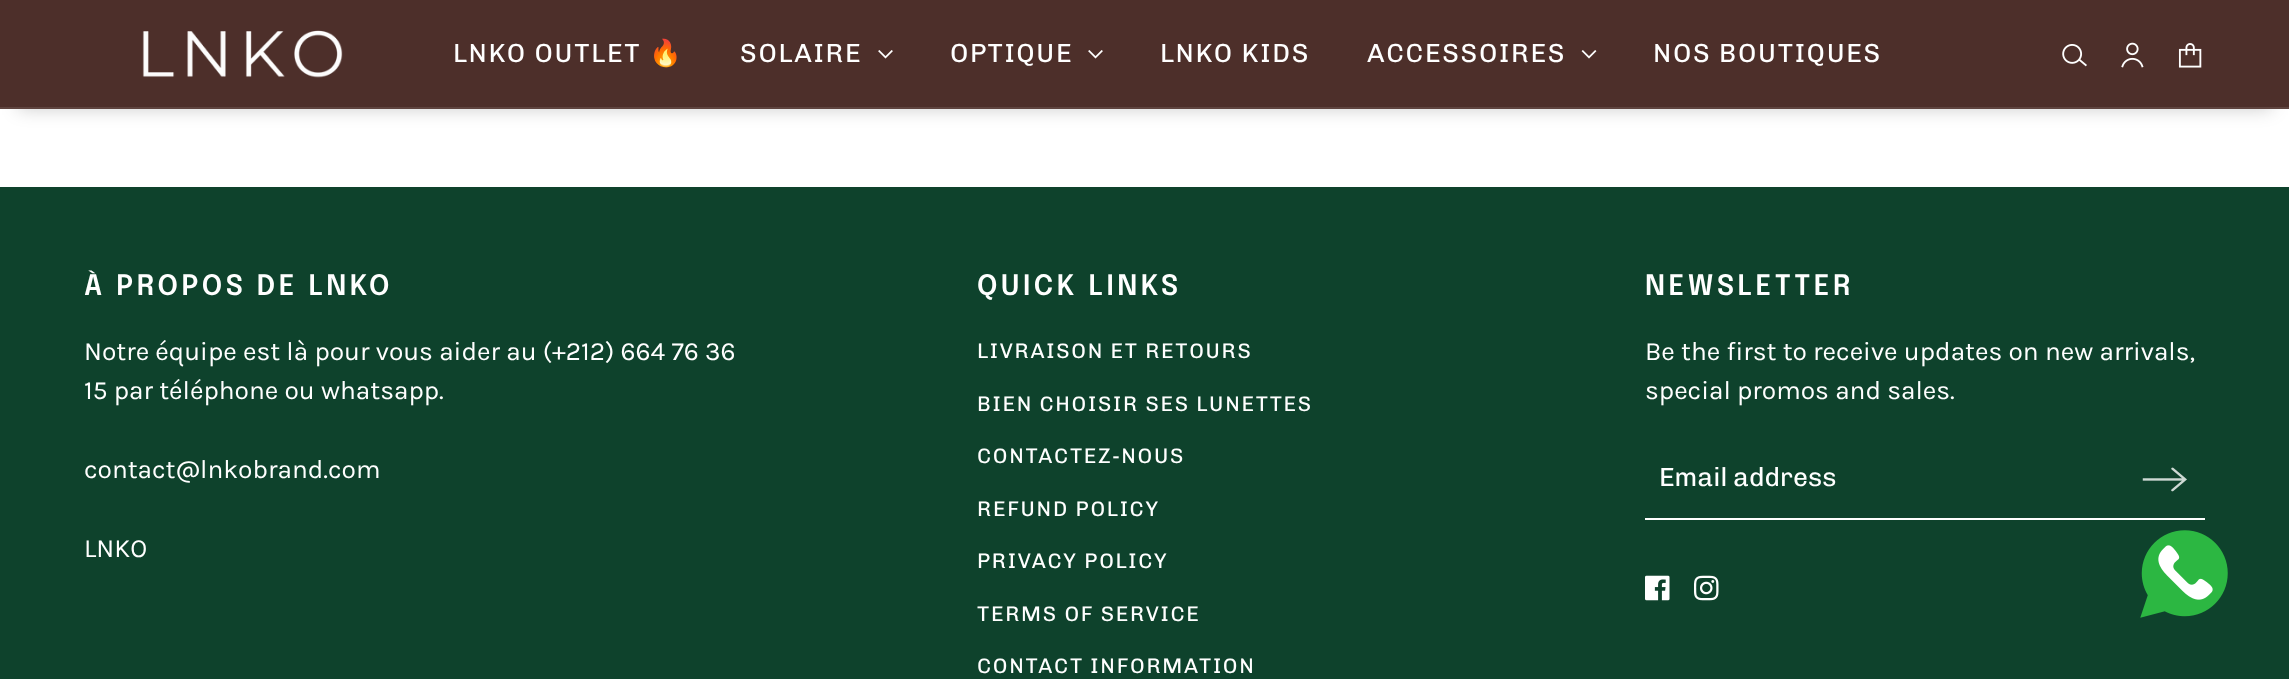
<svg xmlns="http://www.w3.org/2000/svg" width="2289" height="679">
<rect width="100%" height="100%" fill="#fff"/>
<rect x="18" y="35" width="2254" height="74" fill="#00000033" filter="blur(9px)"/>
<rect width="2289" height="107" fill="#4d2f2a"/>
<image x="142" y="30" width="201" height="48" href="media/1.png"/>
<text x="453" y="62" style="font-family:Chivo;font-size:26.25px;letter-spacing:1.75px;fill:#fff">LNKO OUTLET</text>
<text x="649" y="62" style="font-family:Noto Color Emoji;font-size:26.25px;letter-spacing:1.75px;fill:#fff">🔥</text>
<text x="740" y="62" style="font-family:Chivo;font-size:26.25px;letter-spacing:1.75px;fill:#fff">SOLAIRE</text>
<image x="878" y="50" width="15" height="9" href="media/2.png"/>
<text x="950" y="62" style="font-family:Chivo;font-size:26.25px;letter-spacing:1.75px;fill:#fff">OPTIQUE</text>
<image x="1088" y="50" width="15" height="9" href="media/2.png"/>
<text x="1160" y="62" style="font-family:Chivo;font-size:26.25px;letter-spacing:1.75px;fill:#fff">LNKO KIDS</text>
<text x="1367" y="62" style="font-family:Chivo;font-size:26.25px;letter-spacing:1.75px;fill:#fff">ACCESSOIRES</text>
<image x="1581" y="50" width="16" height="9" href="media/3.png"/>
<text x="1653" y="62" style="font-family:Chivo;font-size:26.25px;letter-spacing:1.75px;fill:#fff">NOS BOUTIQUES</text>
<image x="2062" y="44" width="25" height="23" href="media/4.png"/>
<image x="2121" y="42" width="23" height="26" href="media/5.png"/>
<image x="2178" y="43" width="24" height="25" href="media/6.png"/>
<rect y="107" width="2289" height="2" fill="#5f443f"/>
<rect y="187" width="2289" height="492" fill="#0e422c"/>
<text x="84" y="295" style="font-family:Epilogue;font-size:28px;font-weight:600;letter-spacing:3.5px;fill:#fff">À PROPOS DE LNKO</text>
<text x="84" y="360" style="font-family:Karla;font-size:26.25px;fill:#fff">Notre équipe est là pour vous aider au (+212) 664 76 36</text>
<text x="84" y="399" style="font-family:Karla;font-size:26.25px;fill:#fff">15 par téléphone ou whatsapp.</text>
<text x="84" y="478" style="font-family:Karla;font-size:26.25px;fill:#fff">contact@lnkobrand.com</text>
<text x="84" y="557" style="font-family:Karla;font-size:26.25px;fill:#fff">LNKO</text>
<text x="977" y="295" style="font-family:Epilogue;font-size:28px;font-weight:600;letter-spacing:3.5px;fill:#fff">QUICK LINKS</text>
<text x="977" y="358" style="font-family:Chivo;font-size:21px;letter-spacing:1.75px;fill:#fff">LIVRAISON ET RETOURS</text>
<text x="977" y="411" style="font-family:Chivo;font-size:21px;letter-spacing:1.75px;fill:#fff">BIEN CHOISIR SES LUNETTES</text>
<text x="977" y="463" style="font-family:Chivo;font-size:21px;letter-spacing:1.75px;fill:#fff">CONTACTEZ-NOUS</text>
<text x="977" y="516" style="font-family:Chivo;font-size:21px;letter-spacing:1.75px;fill:#fff">REFUND POLICY</text>
<text x="977" y="568" style="font-family:Chivo;font-size:21px;letter-spacing:1.75px;fill:#fff">PRIVACY POLICY</text>
<text x="977" y="621" style="font-family:Chivo;font-size:21px;letter-spacing:1.75px;fill:#fff">TERMS OF SERVICE</text>
<text x="977" y="673" style="font-family:Chivo;font-size:21px;letter-spacing:1.75px;fill:#fff">CONTACT INFORMATION</text>
<text x="1645" y="295" style="font-family:Epilogue;font-size:28px;font-weight:600;letter-spacing:3.5px;fill:#fff">NEWSLETTER</text>
<text x="1645" y="360" style="font-family:Karla;font-size:26.25px;fill:#fff">Be the first to receive updates on new arrivals,</text>
<text x="1645" y="399" style="font-family:Karla;font-size:26.25px;fill:#fff">special promos and sales.</text>
<rect x="1645" y="518" width="560" height="2" fill="#fff"/>
<text x="1659" y="486" style="font-family:Chivo;font-size:26.25px;fill:#fff">Email address</text>
<image x="2142" y="467" width="45" height="25" href="media/7.png"/>
<image x="1645" y="575" width="25" height="26" href="media/8.png"/>
<image x="1694" y="575" width="25" height="26" href="media/9.png"/>
<image x="2140" y="530" width="88" height="88" href="media/10.png"/>
</svg>
